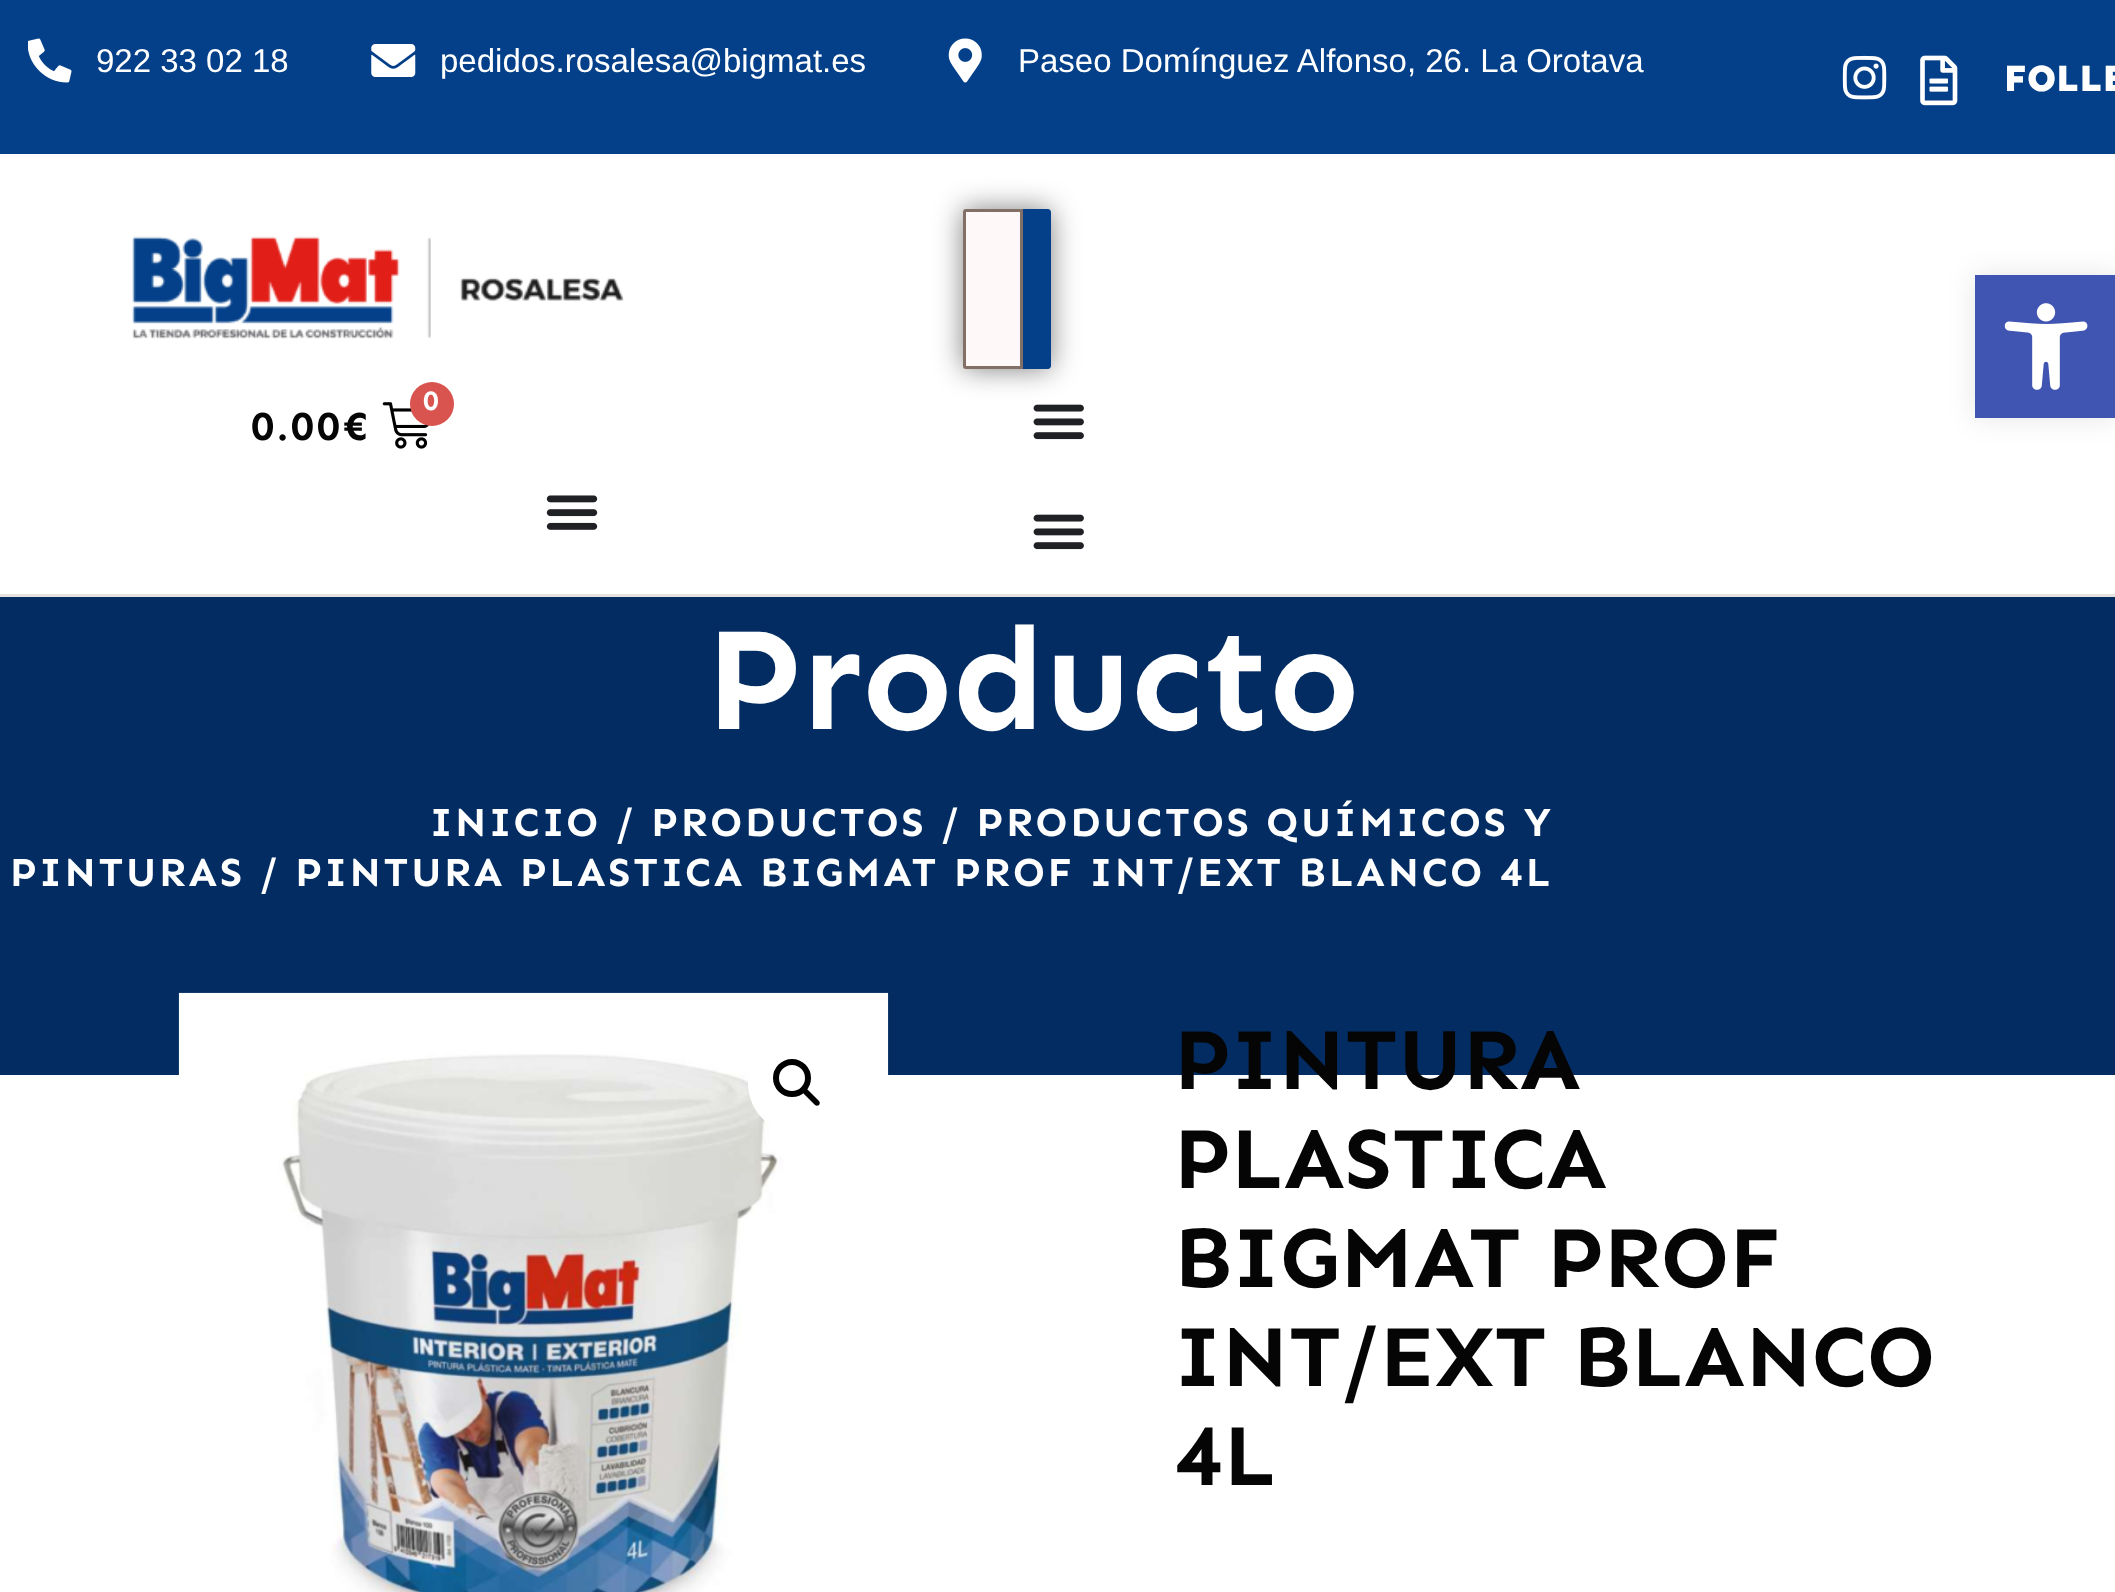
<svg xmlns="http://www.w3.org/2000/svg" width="2115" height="1592">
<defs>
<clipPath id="clip1"><rect x="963" y="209" width="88" height="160" rx="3"/></clipPath>
<linearGradient id="g1" gradientUnits="userSpaceOnUse" x1="932" y1="1273" x2="1186" y2="77"><stop offset="0" stop-color="#032d62"/><stop offset="0" stop-color="#032d62"/></linearGradient>
</defs>
<rect width="100%" height="100%" fill="#fff"/>
<rect width="2115" height="154" fill="#044089"/>
<image x="28" y="38" width="44" height="45" href="media/1.png"/>
<text x="96" y="72" style="font-family:Liberation Sans;font-size:33px;fill:#fff">922 33 02 18</text>
<image x="371" y="44" width="45" height="33" href="media/2.png"/>
<text x="440" y="72" style="font-family:Liberation Sans;font-size:33px;fill:#fff">pedidos.rosalesa@bigmat.es</text>
<image x="948" y="38" width="34" height="45" href="media/3.png"/>
<text x="1018" y="72" style="font-family:Liberation Sans;font-size:33px;fill:#fff">Paseo Domínguez Alfonso, 26. La Orotava</text>
<image x="1842" y="55" width="45" height="45" href="media/4.png"/>
<image x="1920" y="55" width="38" height="51" href="media/5.png"/>
<text x="2004" y="91" style="font-family:Sen;font-size:38.5px;font-weight:800;fill:#fff">FOLLE</text>
<rect y="594" width="2115" height="3" fill="#e6e2e0"/>
<image x="132" y="236" width="492" height="104" href="media/6.png"/>
<rect x="963" y="209" width="88" height="160" rx="3" fill="#00000080" filter="blur(14px)"/>
<g clip-path="url(#clip1)">
<rect x="963" y="209" width="60" height="160" fill="#00000080" filter="blur(14px)"/>
</g>
<path d="M966 209h57v160h-57c-1.5 0-3-1.5-3-3v-154c0-1.5 1.5-3 3-3z" fill="#fff8f8"/>
<path d="M966 209c-2 0-3 1-3 3v154c0 2 1 3 3 3h57v-160zm0 3v154h54v-154z" fill="#826f66" fill-rule="evenodd"/>
<path d="M1023 209h25c1.5 0 3 1.5 3 3v154c0 1.5-1.5 3-3 3h-25z" fill="#044089"/>
<image x="382" y="402" width="47" height="47" href="media/7.png"/>
<circle cx="432" cy="404" r="22" fill="#d9534f"/>
<text x="423" y="410" style="font-family:Sen;font-size:28px;font-weight:bold;letter-spacing:2.75px;fill:#fff">0</text>
<text x="251" y="440" style="font-family:Sen;font-size:41.25px;font-weight:bold;letter-spacing:2.75px;fill:#050505">0.00€</text>
<image x="546" y="495" width="52" height="35" href="media/8.png"/>
<image x="1033" y="404" width="51" height="36" href="media/9.png"/>
<image x="1033" y="514" width="51" height="36" href="media/10.png"/>
<rect x="1975" y="275" width="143" height="143" fill="#0000001a" filter="blur(14px)"/>
<rect x="1975" y="275" width="140" height="143" fill="#4054b2"/>
<image x="2004" y="303" width="84" height="87" href="media/11.png"/>
<rect y="597" width="2115" height="478" fill="url(#g1)"/>
<text x="706" y="729" style="font-family:Sen;font-size:148.5px;font-weight:bold;fill:#fff">Producto</text>
<text x="430" y="836" style="font-family:Sen;font-size:41.25px;font-weight:bold;letter-spacing:2.75px;fill:#fff">INICIO / PRODUCTOS / PRODUCTOS QUÍMICOS Y</text>
<text x="10" y="886" style="font-family:Sen;font-size:41.25px;font-weight:bold;letter-spacing:2.75px;fill:#fff">PINTURAS / PINTURA PLASTICA BIGMAT PROF INT/EXT BLANCO 4L</text>
<image x="178" y="992" width="711" height="600" href="media/12.png"/>
<circle cx="797.5" cy="1083.5" r="49.5" fill="#fff"/>
<circle cx="792" cy="1078" r="16" fill="none" stroke="#000" stroke-width="6"/>
<path d="M803.5 1089.5c1-1 2.5-1 4 0l11.5 11.5c1 1 1 3 0 4c-1 1-3 1-4 0l-11.5-11.5c-1-1-1-3 0-4z" fill="#000"/>
<text x="1174" y="1089" style="font-family:Sen;font-size:88px;font-weight:bold;fill:#050505">PINTURA</text>
<text x="1174" y="1188" style="font-family:Sen;font-size:88px;font-weight:bold;fill:#050505">PLASTICA</text>
<text x="1174" y="1287" style="font-family:Sen;font-size:88px;font-weight:bold;fill:#050505">BIGMAT PROF</text>
<text x="1174" y="1386" style="font-family:Sen;font-size:88px;font-weight:bold;fill:#050505">INT/EXT BLANCO</text>
<text x="1174" y="1485" style="font-family:Sen;font-size:88px;font-weight:bold;fill:#050505">4L</text>
</svg>
